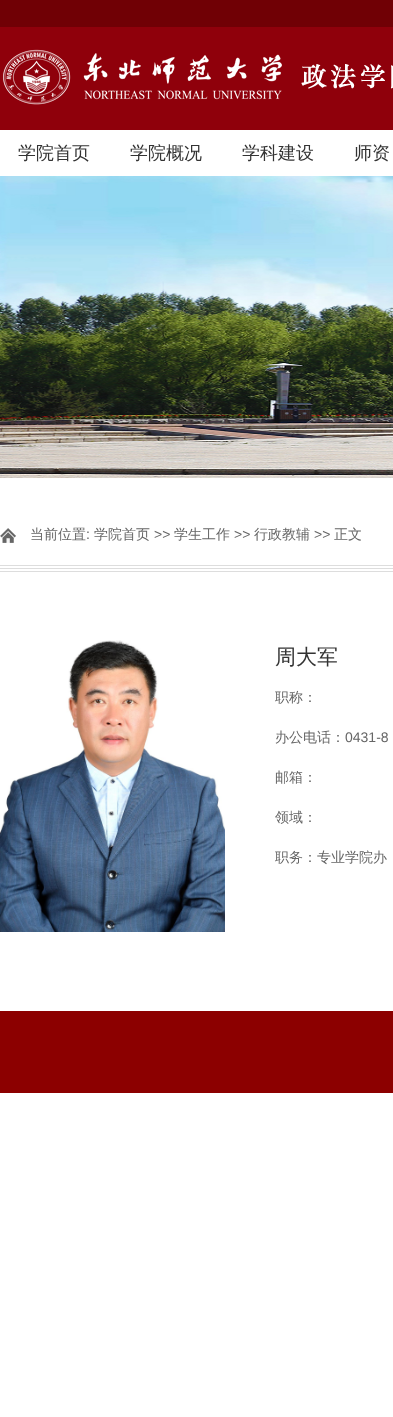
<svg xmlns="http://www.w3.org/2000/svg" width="393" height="1417">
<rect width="100%" height="100%" fill="#fff"/>
<rect width="393" height="27" fill="#700005"/>
<rect y="27" width="393" height="103" fill="#8f000b"/>
<image x="3" y="49" width="390" height="56" href="media/1.png"/>
<text x="18" y="159" style="font-family:WenQuanYi Zen Hei;font-size:18px;font-weight:500;fill:#333">学院首页</text>
<text x="130" y="159" style="font-family:WenQuanYi Zen Hei;font-size:18px;font-weight:500;fill:#333">学院概况</text>
<text x="242" y="159" style="font-family:WenQuanYi Zen Hei;font-size:18px;font-weight:500;fill:#333">学科建设</text>
<text x="354" y="159" style="font-family:WenQuanYi Zen Hei;font-size:18px;font-weight:500;fill:#333">师资</text>
<image x="0" y="176" width="393" height="302" href="media/2.png"/>
<image x="0" y="565" width="393" height="7" href="media/3.png"/>
<image x="0" y="528" width="16" height="15" href="media/4.png"/>
<text x="30" y="539" style="font-family:WenQuanYi Zen Hei;font-size:14px;font-weight:500;fill:#666">当前位置</text>
<text x="86" y="539" style="font-family:Liberation Sans;font-size:14px;fill:#666">:</text>
<text x="94" y="539" style="font-family:WenQuanYi Zen Hei;font-size:14px;font-weight:500;fill:#666">学院首页</text>
<text x="154" y="539" style="font-family:Liberation Sans;font-size:14px;fill:#666">&gt;&gt;</text>
<text x="174" y="539" style="font-family:WenQuanYi Zen Hei;font-size:14px;font-weight:500;fill:#666">学生工作</text>
<text x="234" y="539" style="font-family:Liberation Sans;font-size:14px;fill:#666">&gt;&gt;</text>
<text x="254" y="539" style="font-family:WenQuanYi Zen Hei;font-size:14px;font-weight:500;fill:#666">行政教辅</text>
<text x="314" y="539" style="font-family:Liberation Sans;font-size:14px;fill:#666">&gt;&gt;</text>
<text x="334" y="539" style="font-family:WenQuanYi Zen Hei;font-size:14px;font-weight:500;fill:#666">正文</text>
<image x="0" y="640" width="225" height="292" href="media/5.png"/>
<text x="275" y="664" style="font-family:WenQuanYi Zen Hei;font-size:21px;font-weight:500;fill:#333">周大军</text>
<text x="275" y="702" style="font-family:WenQuanYi Zen Hei;font-size:14px;font-weight:500;fill:#666">职称：</text>
<text x="275" y="742" style="font-family:WenQuanYi Zen Hei;font-size:14px;font-weight:500;fill:#666">办公电话：</text>
<text x="345" y="742" style="font-family:Liberation Sans;font-size:14px;fill:#666">0431-8</text>
<text x="275" y="782" style="font-family:WenQuanYi Zen Hei;font-size:14px;font-weight:500;fill:#666">邮箱：</text>
<text x="275" y="822" style="font-family:WenQuanYi Zen Hei;font-size:14px;font-weight:500;fill:#666">领域：</text>
<text x="275" y="862" style="font-family:WenQuanYi Zen Hei;font-size:14px;font-weight:500;fill:#666">职务：专业学院办</text>
<rect y="1011" width="393" height="82" fill="#8c0000"/>
</svg>
